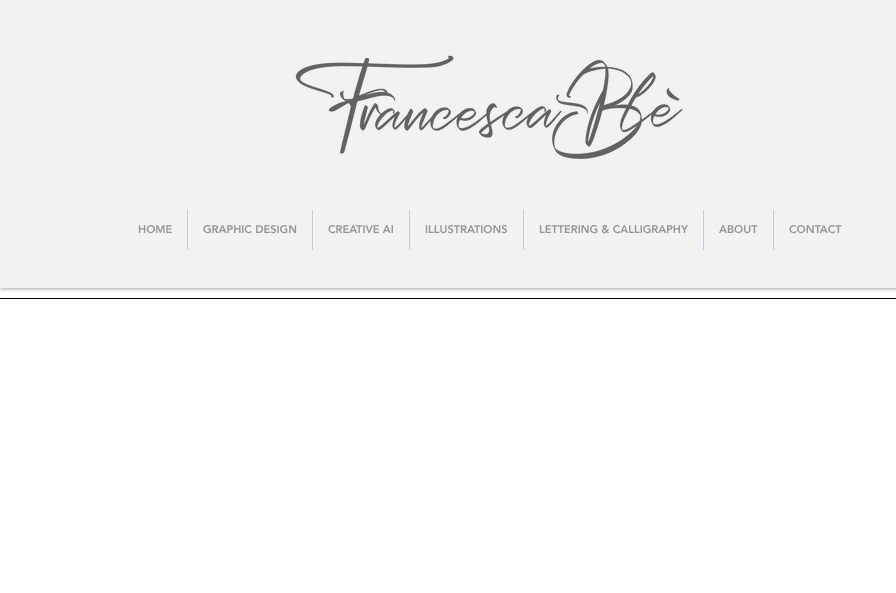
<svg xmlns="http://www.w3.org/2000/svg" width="896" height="593">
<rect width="100%" height="100%" fill="#fff"/>
<rect width="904" height="288" fill="#00000080" filter="blur(2.5px)"/>
<rect width="896" height="288" fill="#f3f2f2"/>
<image x="295" y="55" width="388" height="105" href="media/1.png"/>
<text x="138" y="233" style="font-family:'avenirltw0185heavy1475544';font-size:11px;font-weight:900;fill:#959494">HOME</text>
<rect x="187" y="210" width="1" height="40" fill="#d8bde2"/>
<text x="203" y="233" style="font-family:'avenirltw0185heavy1475544';font-size:11px;font-weight:900;fill:#959494">GRAPHIC DESIGN</text>
<rect x="312" y="210" width="1" height="40" fill="#d8bde2"/>
<text x="328" y="233" style="font-family:'avenirltw0185heavy1475544';font-size:11px;font-weight:900;fill:#959494">CREATIVE AI</text>
<rect x="409" y="210" width="1" height="40" fill="#d8bde2"/>
<text x="425" y="233" style="font-family:'avenirltw0185heavy1475544';font-size:11px;font-weight:900;fill:#959494">ILLUSTRATIONS</text>
<rect x="523" y="210" width="1" height="40" fill="#d8bde2"/>
<text x="539" y="233" style="font-family:'avenirltw0185heavy1475544';font-size:11px;font-weight:900;fill:#959494">LETTERING &amp; CALLIGRAPHY</text>
<rect x="703" y="210" width="1" height="40" fill="#d8bde2"/>
<text x="719" y="233" style="font-family:'avenirltw0185heavy1475544';font-size:11px;font-weight:900;fill:#959494">ABOUT</text>
<rect x="773" y="210" width="1" height="40" fill="#d8bde2"/>
<text x="789" y="233" style="font-family:'avenirltw0185heavy1475544';font-size:11px;font-weight:900;fill:#959494">CONTACT</text>
<rect y="298" width="896" height="1" fill="#000"/>
</svg>
